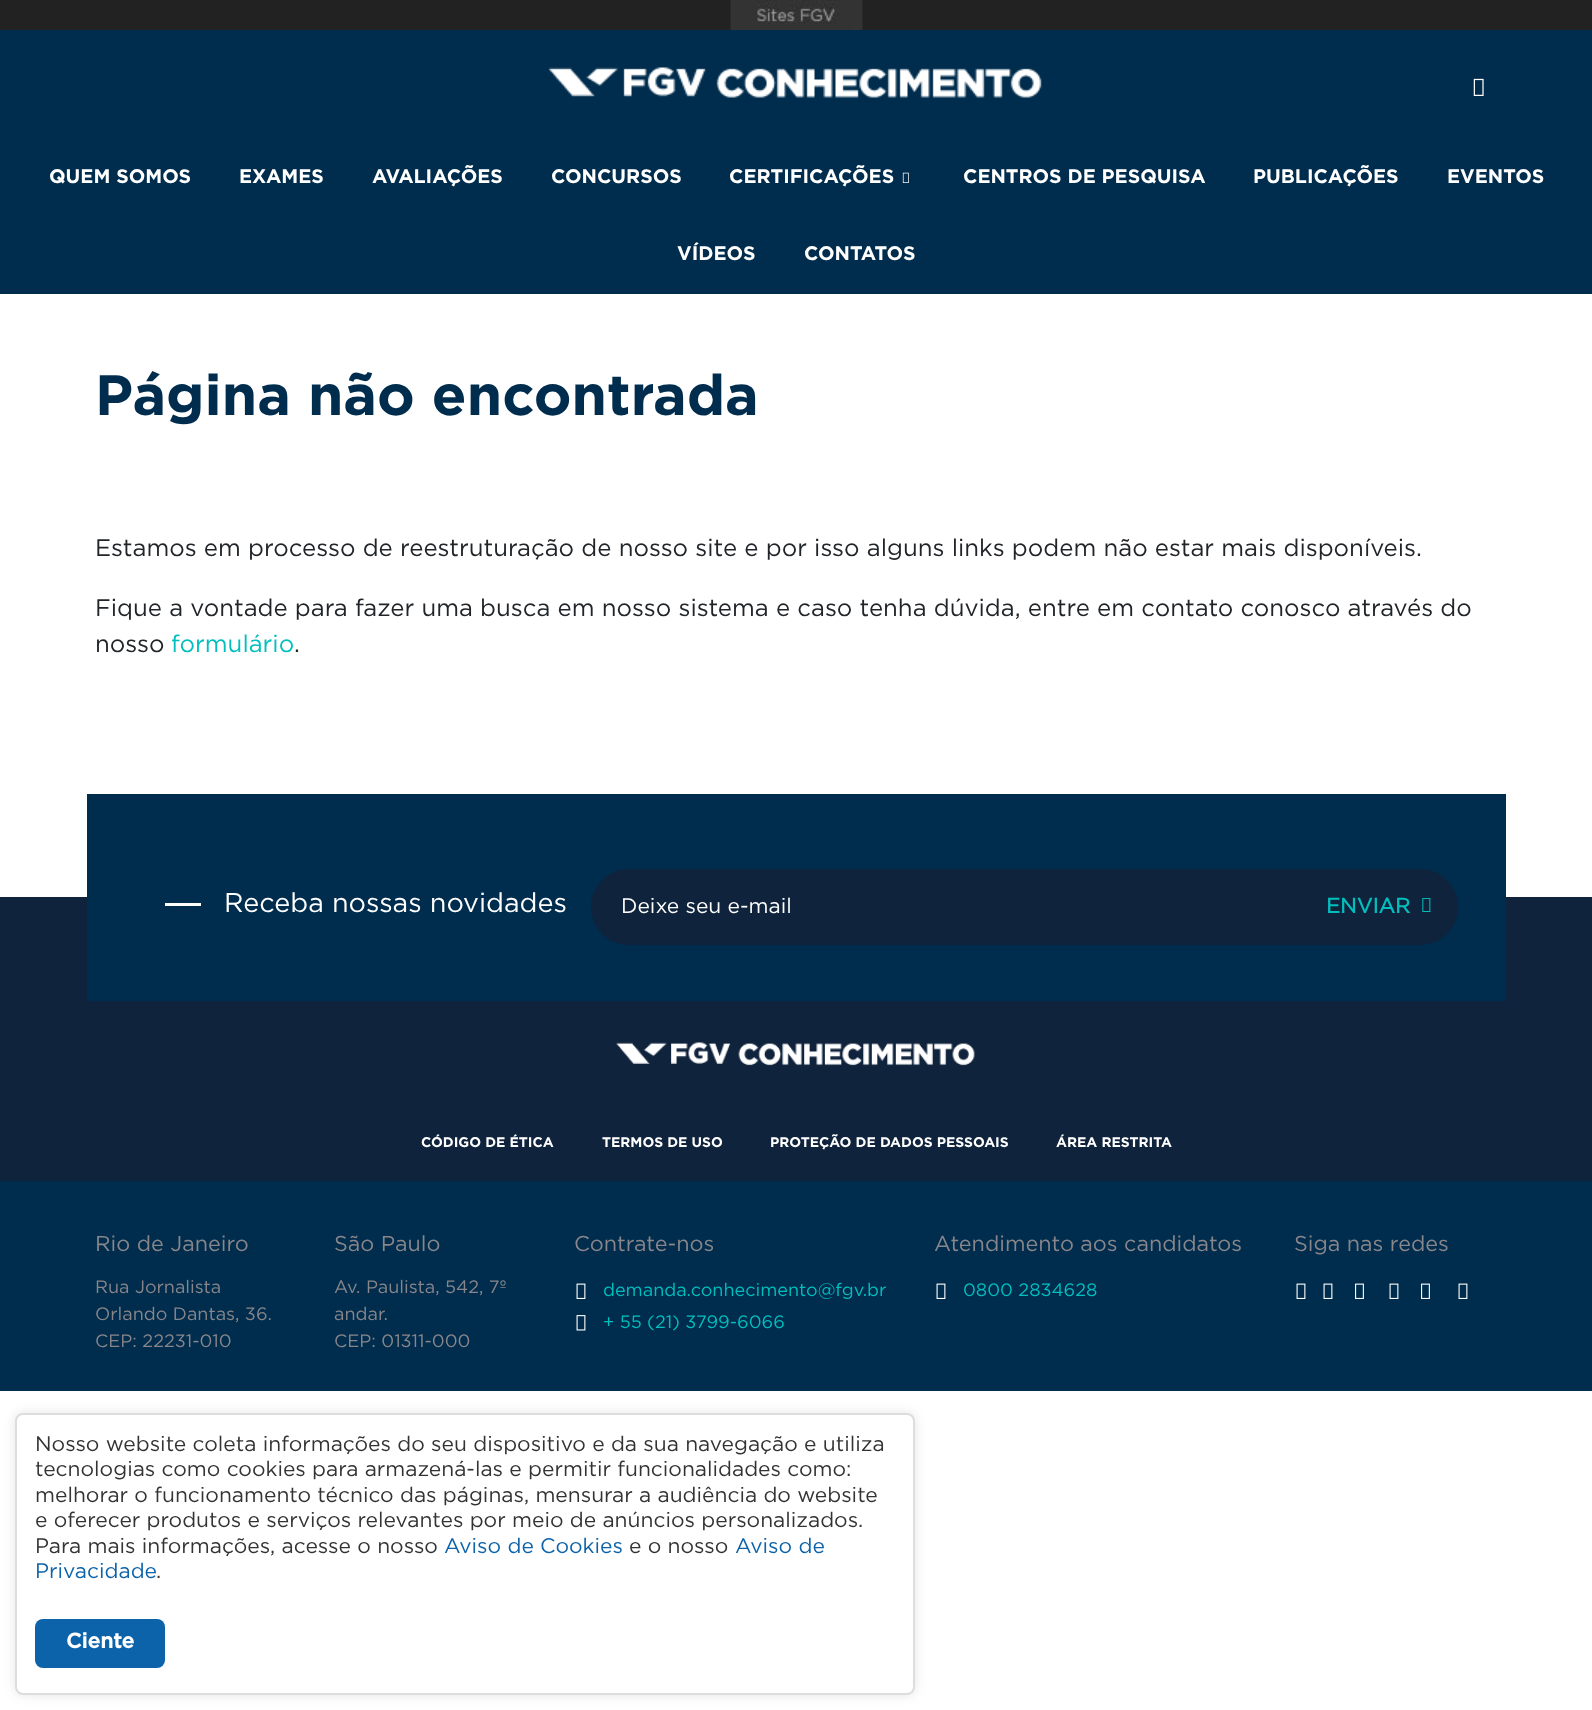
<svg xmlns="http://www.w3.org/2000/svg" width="1592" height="1710">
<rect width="100%" height="100%" fill="#fff"/>
<rect width="1592" height="30" fill="#222"/>
<image x="730" y="0" width="133" height="30" href="media/1.png"/>
<rect y="30" width="1592" height="264" fill="#002d4d"/>
<image x="549" y="67" width="493" height="31" href="media/2.png"/>
<image x="1473" y="78" width="11" height="18" href="media/3.png"/>
<text x="49" y="183" style="font-family:Gotham;font-size:19.5px;font-weight:bold;fill:#fff">QUEM SOMOS</text>
<text x="239" y="183" style="font-family:Gotham;font-size:19.5px;font-weight:bold;fill:#fff">EXAMES</text>
<text x="372" y="183" style="font-family:Gotham;font-size:19.5px;font-weight:bold;fill:#fff">AVALIAÇÕES</text>
<text x="551" y="183" style="font-family:Gotham;font-size:19.5px;font-weight:bold;fill:#fff">CONCURSOS</text>
<text x="729" y="183" style="font-family:Gotham;font-size:19.5px;font-weight:bold;fill:#fff">CERTIFICAÇÕES</text>
<image x="902" y="172" width="7" height="11" href="media/4.png"/>
<text x="963" y="183" style="font-family:Gotham;font-size:19.5px;font-weight:bold;fill:#fff">CENTROS DE PESQUISA</text>
<text x="1253" y="183" style="font-family:Gotham;font-size:19.5px;font-weight:bold;fill:#fff">PUBLICAÇÕES</text>
<text x="1447" y="183" style="font-family:Gotham;font-size:19.5px;font-weight:bold;fill:#fff">EVENTOS</text>
<text x="677" y="260" style="font-family:Gotham;font-size:19.5px;font-weight:bold;fill:#fff">VÍDEOS</text>
<text x="804" y="260" style="font-family:Gotham;font-size:19.5px;font-weight:bold;fill:#fff">CONTATOS</text>
<text x="95" y="415" style="font-family:Gotham;font-size:56.9px;font-weight:bold;fill:#002d4d">Página não encontrada</text>
<text x="95" y="556" style="font-family:Gotham;font-size:24px;fill:#212529">Estamos em processo de reestruturação de nosso site e por isso alguns links podem não estar mais disponíveis.</text>
<text x="95" y="616" style="font-family:Gotham;font-size:24px;fill:#212529">Fique a vontade para fazer uma busca em nosso sistema e caso tenha dúvida, entre em contato conosco através do</text>
<text x="95" y="652" style="font-family:Gotham;font-size:24px;fill:#212529">nosso</text>
<text x="171" y="652" style="font-family:Gotham;font-size:24px;fill:#01bfbf">formulário</text>
<text x="294" y="652" style="font-family:Gotham;font-size:24px;fill:#212529">.</text>
<rect y="897" width="1592" height="284" fill="#0f233c"/>
<rect x="87" y="794" width="1419" height="207" fill="#002d4d"/>
<rect x="165" y="903" width="36" height="3" fill="#fff"/>
<text x="224" y="912" style="font-family:Gotham;font-size:27px;fill:#fff">Receba nossas novidades</text>
<path d="M629 869h667v76h-667c-21 0-38-17-38-38c0-21 17-38 38-38z" fill="#0f233c"/>
<text x="621" y="913" style="font-family:Gotham;font-size:21px;fill:#fff">Deixe seu e-mail</text>
<path d="M1296 869h124c21 0 38 17 38 38c0 21-17 38-38 38h-124z" fill="#0f233c"/>
<text x="1326" y="913" style="font-family:'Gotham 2';font-size:21px;font-weight:bold;fill:#01bfbf">ENVIAR</text>
<image x="1422" y="898" width="9" height="14" href="media/5.png"/>
<image x="616" y="1042" width="359" height="24" href="media/6.png"/>
<text x="421" y="1147" style="font-family:Gotham;font-size:13.9px;font-weight:bold;fill:#fff">CÓDIGO DE ÉTICA</text>
<text x="602" y="1147" style="font-family:Gotham;font-size:13.9px;font-weight:bold;fill:#fff">TERMOS DE USO</text>
<text x="770" y="1147" style="font-family:Gotham;font-size:13.9px;font-weight:bold;fill:#fff">PROTEÇÃO DE DADOS PESSOAIS</text>
<text x="1056" y="1147" style="font-family:Gotham;font-size:13.9px;font-weight:bold;fill:#fff">ÁREA RESTRITA</text>
<rect y="1181" width="1592" height="210" fill="#002d4d"/>
<text x="95" y="1251" style="font-family:Gotham;font-size:21.6px;fill:#88868b">Rio de Janeiro</text>
<text x="95" y="1293" style="font-family:Gotham;font-size:18px;fill:#88868b">Rua Jornalista</text>
<text x="95" y="1320" style="font-family:Gotham;font-size:18px;fill:#88868b">Orlando Dantas, 36.</text>
<text x="95" y="1347" style="font-family:Gotham;font-size:18px;fill:#88868b">CEP: 22231-010</text>
<text x="334" y="1251" style="font-family:Gotham;font-size:21.6px;fill:#88868b">São Paulo</text>
<text x="334" y="1293" style="font-family:Gotham;font-size:18px;fill:#88868b">Av. Paulista, 542, 7º</text>
<text x="334" y="1320" style="font-family:Gotham;font-size:18px;fill:#88868b">andar.</text>
<text x="334" y="1347" style="font-family:Gotham;font-size:18px;fill:#88868b">CEP: 01311-000</text>
<text x="574" y="1251" style="font-family:Gotham;font-size:21.6px;fill:#88868b">Contrate-nos</text>
<image x="576" y="1283" width="10" height="16" href="media/7.png"/>
<text x="603" y="1296" style="font-family:Gotham;font-size:18px;fill:#01bfbf">demanda.conhecimento@fgv.br</text>
<image x="576" y="1315" width="10" height="16" href="media/8.png"/>
<text x="603" y="1328" style="font-family:Gotham;font-size:18px;fill:#01bfbf">+ 55 (21) 3799-6066</text>
<text x="934" y="1251" style="font-family:Gotham;font-size:21.6px;fill:#88868b">Atendimento aos candidatos</text>
<image x="936" y="1283" width="10" height="16" href="media/7.png"/>
<text x="963" y="1296" style="font-family:Gotham;font-size:18px;fill:#01bfbf">0800 2834628</text>
<text x="1294" y="1251" style="font-family:Gotham;font-size:21.6px;fill:#88868b">Siga nas redes</text>
<image x="1296" y="1283" width="10" height="16" href="media/7.png"/>
<image x="1323" y="1283" width="10" height="16" href="media/7.png"/>
<image x="1355" y="1283" width="9" height="16" href="media/9.png"/>
<image x="1389" y="1283" width="10" height="16" href="media/7.png"/>
<image x="1421" y="1283" width="9" height="16" href="media/9.png"/>
<image x="1458" y="1283" width="10" height="16" href="media/7.png"/>
<rect x="15" y="1413" width="900" height="282" rx="8" fill="#0000001a" filter="blur(6px)"/>
<rect x="16" y="1414" width="898" height="280" rx="7" fill="#fff" stroke="#ddd" stroke-width="2"/>
<text x="35" y="1451" style="font-family:Gotham;font-size:21px;fill:#333">Nosso website coleta informações do seu dispositivo e da sua navegação e utiliza</text>
<text x="35" y="1476" style="font-family:Gotham;font-size:21px;fill:#333">tecnologias como cookies para armazená-las e permitir funcionalidades como:</text>
<text x="35" y="1502" style="font-family:Gotham;font-size:21px;fill:#333">melhorar o funcionamento técnico das páginas, mensurar a audiência do website</text>
<text x="35" y="1527" style="font-family:Gotham;font-size:21px;fill:#333">e oferecer produtos e serviços relevantes por meio de anúncios personalizados.</text>
<text x="35" y="1553" style="font-family:Gotham;font-size:21px;fill:#333">Para mais informações, acesse o nosso</text>
<text x="444" y="1553" style="font-family:Gotham;font-size:21px;fill:#0c63aa">Aviso de Cookies</text>
<text x="629" y="1553" style="font-family:Gotham;font-size:21px;fill:#333">e o nosso</text>
<text x="735" y="1553" style="font-family:Gotham;font-size:21px;fill:#0c63aa">Aviso de</text>
<text x="35" y="1578" style="font-family:Gotham;font-size:21px;fill:#0c63aa">Privacidade</text>
<text x="156" y="1578" style="font-family:Gotham;font-size:21px;fill:#333">.</text>
<rect x="35" y="1619" width="130" height="49" rx="8" fill="#0c63aa"/>
<text x="66" y="1648" style="font-family:'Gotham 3';font-size:21px;font-weight:bold;fill:#fff">Ciente</text>
</svg>
